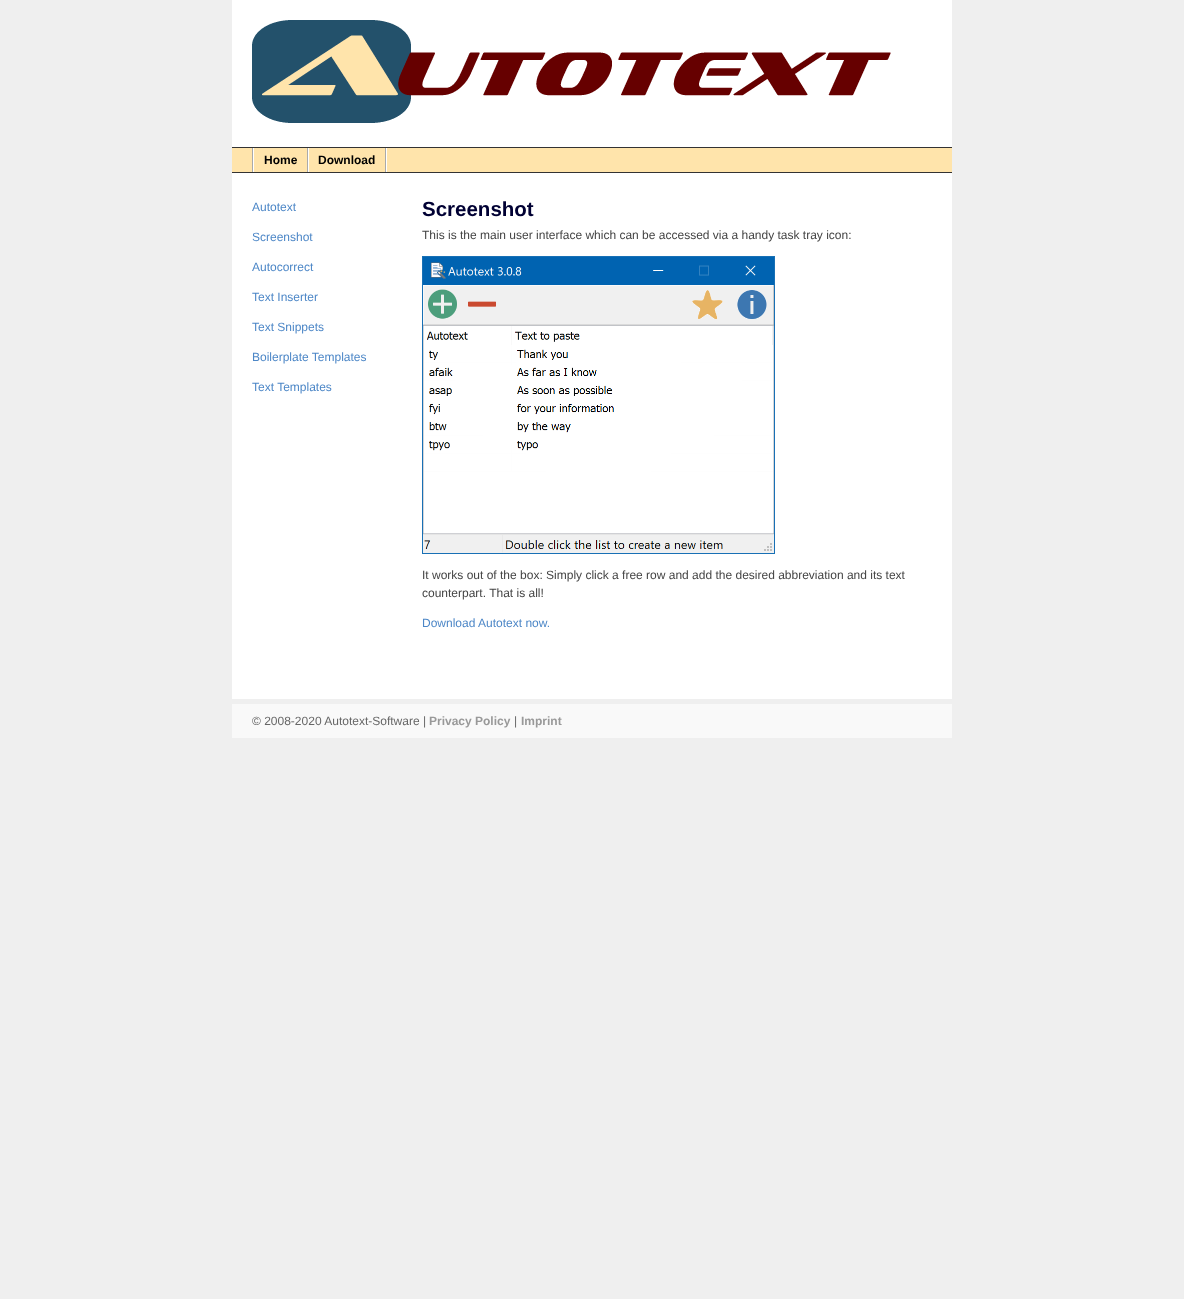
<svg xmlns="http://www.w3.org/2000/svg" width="1184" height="1299">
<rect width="100%" height="100%" fill="#efefef"/>
<rect x="232" width="720" height="699" fill="#fff"/>
<image x="252" y="20" width="639" height="103" href="media/1.png"/>
<rect x="232" y="148" width="720" height="24" fill="#ffe4ab"/>
<rect x="232" y="147" width="720" height="1" fill="#333"/>
<rect x="232" y="172" width="720" height="1" fill="#333"/>
<rect x="386" y="148" width="1" height="24" fill="#fff"/>
<rect x="252" y="148" width="1" height="24" fill="#aaa"/>
<rect x="307" y="148" width="1" height="24" fill="#aaa"/>
<rect x="253" y="148" width="1" height="24" fill="#fff"/>
<text x="264" y="164" style="font-family:Liberation Sans;font-size:12px;font-weight:bold;fill:#000">Home</text>
<rect x="385" y="148" width="1" height="24" fill="#aaa"/>
<rect x="308" y="148" width="1" height="24" fill="#fff"/>
<text x="318" y="164" style="font-family:Liberation Sans;font-size:12px;font-weight:bold;fill:#000">Download</text>
<text x="252" y="211" style="font-family:Liberation Sans;font-size:12px;fill:#4d87c7">Autotext</text>
<text x="252" y="241" style="font-family:Liberation Sans;font-size:12px;fill:#4d87c7">Screenshot</text>
<text x="252" y="271" style="font-family:Liberation Sans;font-size:12px;fill:#4d87c7">Autocorrect</text>
<text x="252" y="301" style="font-family:Liberation Sans;font-size:12px;fill:#4d87c7">Text Inserter</text>
<text x="252" y="331" style="font-family:Liberation Sans;font-size:12px;fill:#4d87c7">Text Snippets</text>
<text x="252" y="361" style="font-family:Liberation Sans;font-size:12px;fill:#4d87c7">Boilerplate Templates</text>
<text x="252" y="391" style="font-family:Liberation Sans;font-size:12px;fill:#4d87c7">Text Templates</text>
<text x="422" y="216" style="font-family:Liberation Sans;font-size:20.5px;font-weight:bold;fill:#003">Screenshot</text>
<text x="422" y="239" style="font-family:Liberation Sans;font-size:12px;fill:#444">This is the main user interface which can be accessed via a handy task tray icon:</text>
<image x="422" y="256" width="353" height="298" href="media/2.png"/>
<text x="422" y="579" style="font-family:Liberation Sans;font-size:12px;fill:#444">It works out of the box: Simply click a free row and add the desired abbreviation and its text</text>
<text x="422" y="597" style="font-family:Liberation Sans;font-size:12px;fill:#444">counterpart. That is all!</text>
<text x="422" y="627" style="font-family:Liberation Sans;font-size:12px;fill:#4d87c7">Download Autotext now.</text>
<rect x="232" y="704" width="720" height="34" fill="#f9f9f9"/>
<text x="252" y="725" style="font-family:Liberation Sans;font-size:12px;fill:#666">© 2008-2020 Autotext-Software |</text>
<text x="429" y="725" style="font-family:Liberation Sans;font-size:12px;font-weight:bold;fill:#999">Privacy Policy</text>
<text x="514" y="725" style="font-family:Liberation Sans;font-size:12px;fill:#666">|</text>
<text x="521" y="725" style="font-family:Liberation Sans;font-size:12px;font-weight:bold;fill:#999">Imprint</text>
</svg>
